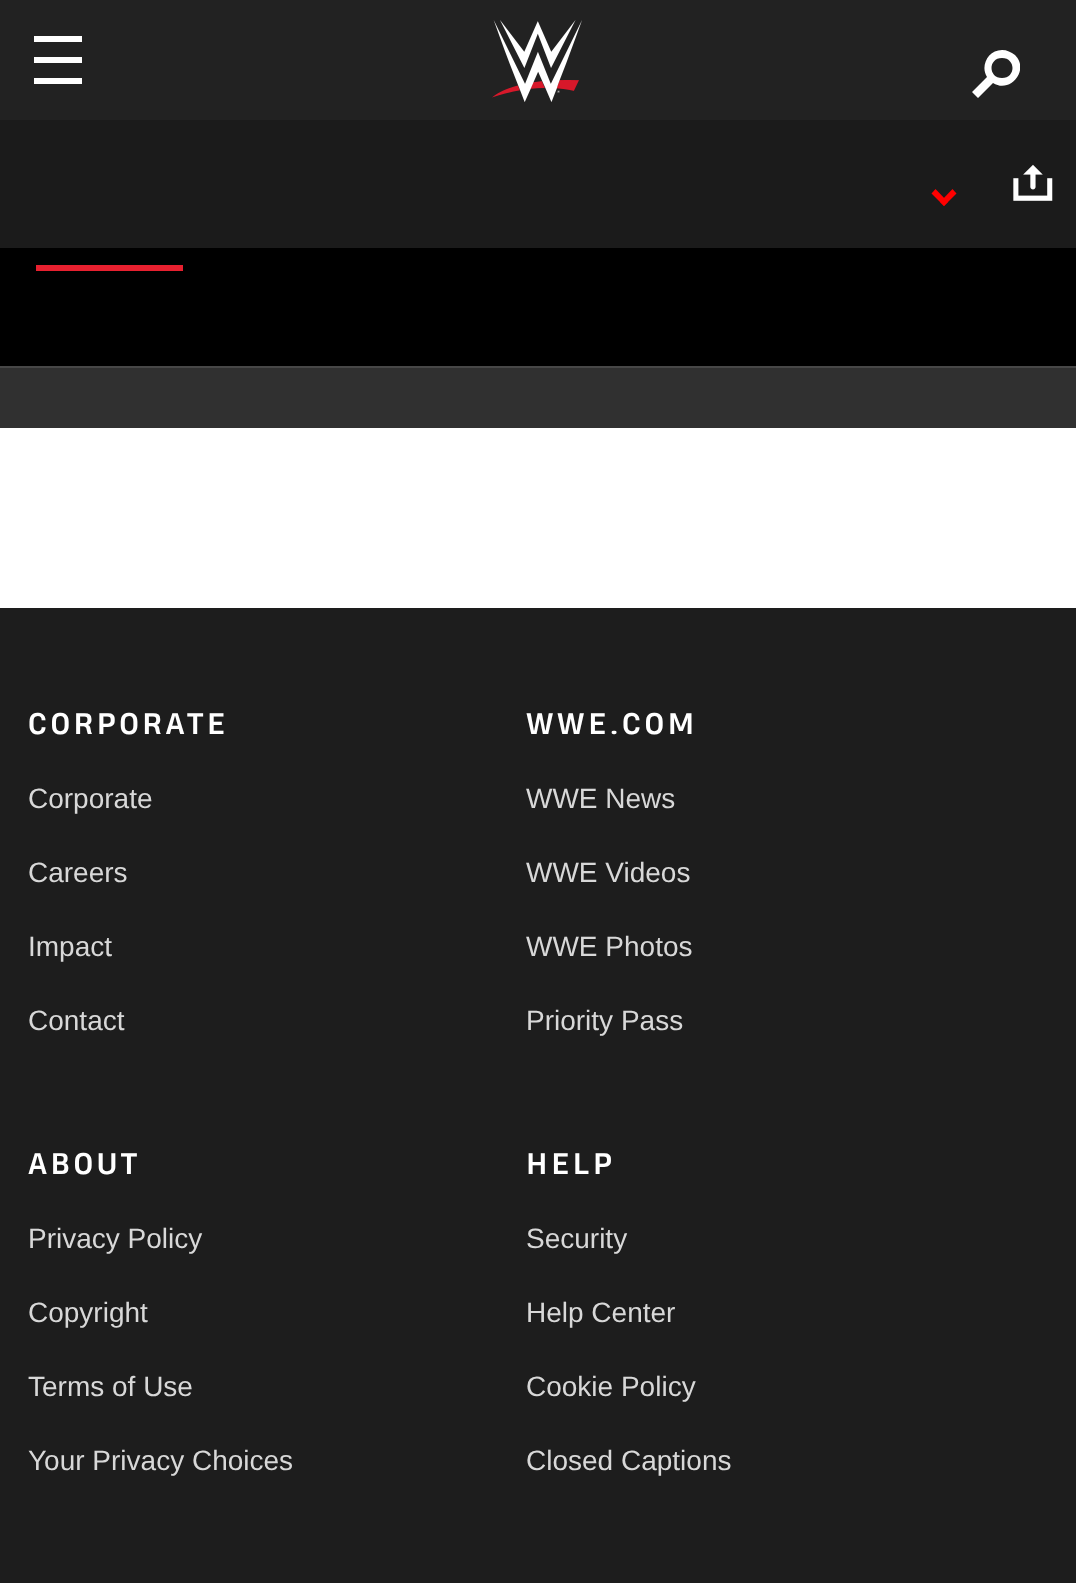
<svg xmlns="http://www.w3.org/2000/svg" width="1076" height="1583">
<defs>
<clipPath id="clip1"><rect x="972" y="50" width="48" height="48"/></clipPath>
</defs>
<rect width="100%" height="100%" fill="#fff"/>
<rect width="1076" height="120" fill="#222"/>
<path d="M36 42h-2v-6h48v6zm0 21h-2v-6h48v6zm0 21h-2v-6h48v6z" fill="#fff" fill-rule="evenodd"/>
<image x="492" y="20" width="90" height="82" href="media/1.png"/>
<g clip-path="url(#clip1)">
<path d="M1002 50c5 0 9 2 13 5c15 15-5 39-22 28l-15 15l-6-6l15-15c-7-11 1-27 15-27zm0 8c-14 0-14 20 0 20c14 0 14-20 0-20z" fill="#fff" fill-rule="evenodd"/>
</g>
<rect y="368" width="1076" height="60" fill="#303030"/>
<rect y="120" width="1076" height="128" fill="#1b1b1b"/>
<path d="M952.5 189l4 4.5l-12.5 12.5l-4-4z" fill="#f00"/>
<path d="M935.5 189l12.5 13l-4 4l-12.5-12.5z" fill="#f00"/>
<image x="1013" y="164" width="40" height="37" href="media/2.png"/>
<rect y="248" width="1076" height="118" fill="#000"/>
<rect y="366" width="1076" height="2" fill="#474747"/>
<rect x="36" y="265" width="147" height="6" fill="#e7202f"/>
<rect y="608" width="1076" height="975" fill="#1d1d1d"/>
<text x="28" y="734" style="font-family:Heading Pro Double;font-size:28px;font-weight:bold;letter-spacing:3.5px;fill:#fff">CORPORATE</text>
<text x="28" y="808" style="font-family:Liberation Sans;font-size:28px;fill:#d8d8d8">Corporate</text>
<text x="28" y="882" style="font-family:Liberation Sans;font-size:28px;fill:#d8d8d8">Careers</text>
<text x="28" y="956" style="font-family:Liberation Sans;font-size:28px;fill:#d8d8d8">Impact</text>
<text x="28" y="1030" style="font-family:Liberation Sans;font-size:28px;fill:#d8d8d8">Contact</text>
<text x="526" y="734" style="font-family:Heading Pro Double;font-size:28px;font-weight:bold;letter-spacing:3.5px;fill:#fff">WWE.COM</text>
<text x="526" y="808" style="font-family:Liberation Sans;font-size:28px;fill:#d8d8d8">WWE News</text>
<text x="526" y="882" style="font-family:Liberation Sans;font-size:28px;fill:#d8d8d8">WWE Videos</text>
<text x="526" y="956" style="font-family:Liberation Sans;font-size:28px;fill:#d8d8d8">WWE Photos</text>
<text x="526" y="1030" style="font-family:Liberation Sans;font-size:28px;fill:#d8d8d8">Priority Pass</text>
<text x="28" y="1174" style="font-family:Heading Pro Double;font-size:28px;font-weight:bold;letter-spacing:3.5px;fill:#fff">ABOUT</text>
<text x="28" y="1248" style="font-family:Liberation Sans;font-size:28px;fill:#d8d8d8">Privacy Policy</text>
<text x="28" y="1322" style="font-family:Liberation Sans;font-size:28px;fill:#d8d8d8">Copyright</text>
<text x="28" y="1396" style="font-family:Liberation Sans;font-size:28px;fill:#d8d8d8">Terms of Use</text>
<text x="28" y="1470" style="font-family:Liberation Sans;font-size:28px;fill:#d8d8d8">Your Privacy Choices</text>
<text x="526" y="1174" style="font-family:Heading Pro Double;font-size:28px;font-weight:bold;letter-spacing:3.5px;fill:#fff">HELP</text>
<text x="526" y="1248" style="font-family:Liberation Sans;font-size:28px;fill:#d8d8d8">Security</text>
<text x="526" y="1322" style="font-family:Liberation Sans;font-size:28px;fill:#d8d8d8">Help Center</text>
<text x="526" y="1396" style="font-family:Liberation Sans;font-size:28px;fill:#d8d8d8">Cookie Policy</text>
<text x="526" y="1470" style="font-family:Liberation Sans;font-size:28px;fill:#d8d8d8">Closed Captions</text>
</svg>
